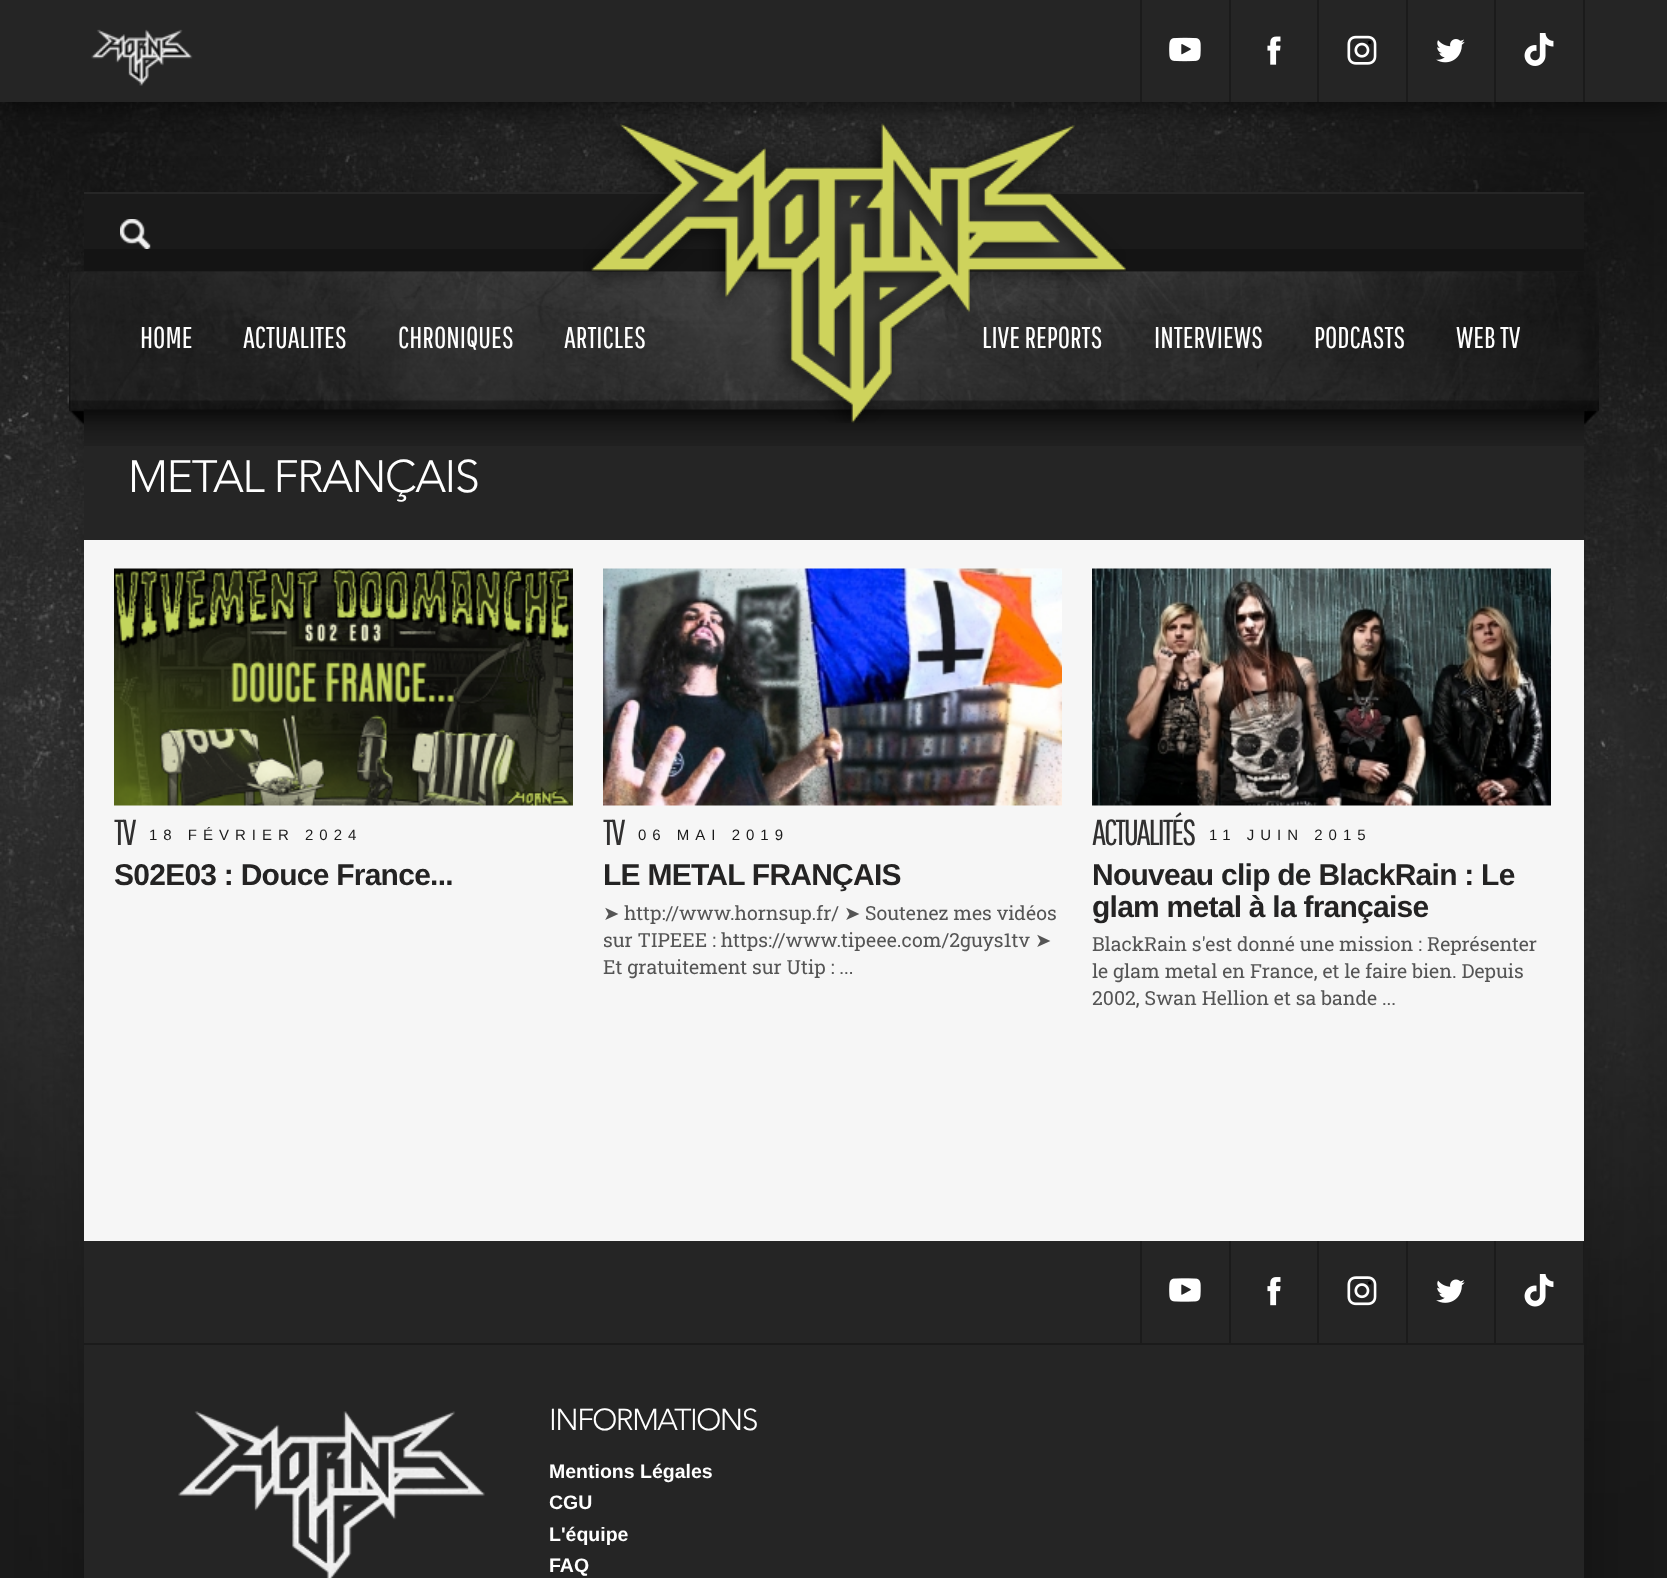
<svg xmlns="http://www.w3.org/2000/svg" width="1667" height="1578">
<rect width="100%" height="100%" fill="#fff"/>
<image x="0" y="102" width="1667" height="1476" href="media/1.png"/>
<rect y="6" width="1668" height="102" fill="#00000080" filter="blur(10.5px)"/>
<rect width="1667" height="102" fill="#252525"/>
<image x="91" y="29" width="102" height="57" href="media/2.png"/>
<rect x="1583" width="2" height="102" fill="#1b1b1b"/>
<rect x="1140" width="2" height="102" fill="#1b1b1b"/>
<image x="1169" y="37" width="32" height="25" href="media/3.png"/>
<rect x="1229" width="2" height="102" fill="#1b1b1b"/>
<image x="1267" y="36" width="14" height="29" href="media/4.png"/>
<rect x="1317" width="2" height="102" fill="#1b1b1b"/>
<image x="1347" y="35" width="30" height="30" href="media/5.png"/>
<rect x="1406" width="2" height="102" fill="#1b1b1b"/>
<image x="1436" y="39" width="29" height="24" href="media/6.png"/>
<rect x="1494" width="2" height="102" fill="#1b1b1b"/>
<image x="1524" y="33" width="30" height="33" href="media/7.png"/>
<rect x="84" y="192" width="1500" height="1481" fill="#0000004d" filter="blur(32px)"/>
<rect x="84" y="194" width="1500" height="78" fill="#1a1a1a"/>
<rect x="84" y="249" width="1500" height="22" fill="#141414"/>
<rect x="84" y="192" width="1500" height="2" fill="#272727"/>
<image x="120" y="219" width="31" height="30" href="media/8.png"/>
<image x="69" y="271" width="1530" height="154" href="media/9.png"/>
<image x="84" y="409" width="1500" height="37" href="media/11.png"/>
<image x="583" y="123" width="543" height="300" href="media/10.png"/>
<text x="140" y="348" style="font-family:Pathway Gothic One;font-size:30px;fill:#fff">HOME</text>
<text x="243" y="348" style="font-family:Pathway Gothic One;font-size:30px;fill:#fff">ACTUALITES</text>
<text x="398" y="348" style="font-family:Pathway Gothic One;font-size:30px;fill:#fff">CHRONIQUES</text>
<text x="564" y="348" style="font-family:Pathway Gothic One;font-size:30px;fill:#fff">ARTICLES</text>
<text x="982" y="348" style="font-family:Pathway Gothic One;font-size:30px;fill:#fff">LIVE REPORTS</text>
<text x="1154" y="348" style="font-family:Pathway Gothic One;font-size:30px;fill:#fff">INTERVIEWS</text>
<text x="1314" y="348" style="font-family:Pathway Gothic One;font-size:30px;fill:#fff">PODCASTS</text>
<text x="1456" y="348" style="font-family:Pathway Gothic One;font-size:30px;fill:#fff">WEB TV</text>
<rect x="84" y="540" width="1500" height="701" fill="#f6f6f6"/>
<rect x="84" y="446" width="1500" height="94" fill="#252525"/>
<text x="128" y="492" style="font-family:Avenir;font-size:45px;font-weight:300;letter-spacing:-1.5px;fill:#fff">METAL FRANÇAIS</text>
<image x="114" y="568" width="459" height="238" href="media/12.png"/>
<text x="114" y="845" style="font-family:Pathway Gothic One;font-size:36px;letter-spacing:-2.25px;fill:#313030">TV</text>
<text x="149" y="840" style="font-family:Liberation Sans;font-size:15px;letter-spacing:6px;fill:#1a1a1a">18 FÉVRIER 2024</text>
<text x="114" y="885" style="font-family:Liberation Sans;font-size:30px;font-weight:bold;letter-spacing:-0.75px;fill:#242323">S02E03 : Douce France...</text>
<image x="603" y="568" width="459" height="238" href="media/13.png"/>
<text x="603" y="845" style="font-family:Pathway Gothic One;font-size:36px;letter-spacing:-2.25px;fill:#313030">TV</text>
<text x="638" y="840" style="font-family:Liberation Sans;font-size:15px;letter-spacing:6px;fill:#1a1a1a">06 MAI 2019</text>
<text x="603" y="885" style="font-family:Liberation Sans;font-size:30px;font-weight:bold;letter-spacing:-0.75px;fill:#242323">LE METAL FRANÇAIS</text>
<text x="603" y="920" style="font-family:DejaVu Sans;font-size:19.5px;fill:#555">➤</text>
<text x="624" y="920" style="font-family:Roboto Slab;font-size:19.5px;fill:#555">http://www.hornsup.fr/</text>
<text x="844" y="920" style="font-family:DejaVu Sans;font-size:19.5px;fill:#555">➤</text>
<text x="865" y="920" style="font-family:Roboto Slab;font-size:19.5px;fill:#555">Soutenez mes vidéos</text>
<text x="603" y="947" style="font-family:Roboto Slab;font-size:19.5px;fill:#555">sur TIPEEE : https://www.tipeee.com/2guys1tv</text>
<text x="1035" y="947" style="font-family:DejaVu Sans;font-size:19.5px;fill:#555">➤</text>
<text x="603" y="974" style="font-family:Roboto Slab;font-size:19.5px;fill:#555">Et gratuitement sur Utip : ...</text>
<image x="1092" y="568" width="459" height="238" href="media/14.png"/>
<text x="1092" y="845" style="font-family:Pathway Gothic One;font-size:36px;letter-spacing:-2.25px;fill:#313030">ACTUALITÉS</text>
<text x="1209" y="840" style="font-family:Liberation Sans;font-size:15px;letter-spacing:6px;fill:#1a1a1a">11 JUIN 2015</text>
<text x="1092" y="885" style="font-family:Liberation Sans;font-size:30px;font-weight:bold;letter-spacing:-0.75px;fill:#242323">Nouveau clip de BlackRain : Le</text>
<text x="1092" y="917" style="font-family:Liberation Sans;font-size:30px;font-weight:bold;letter-spacing:-0.75px;fill:#242323">glam metal à la française</text>
<text x="1092" y="951" style="font-family:Roboto Slab;font-size:19.5px;fill:#555">BlackRain s'est donné une mission : Représenter</text>
<text x="1092" y="978" style="font-family:Roboto Slab;font-size:19.5px;fill:#555">le glam metal en France, et le faire bien. Depuis</text>
<text x="1092" y="1005" style="font-family:Roboto Slab;font-size:19.5px;fill:#555">2002, Swan Hellion et sa bande ...</text>
<rect x="84" y="1241" width="1500" height="337" fill="#252525"/>
<rect x="84" y="1343" width="1500" height="2" fill="#1b1b1b"/>
<rect x="1583" y="1241" width="1" height="102" fill="#1b1b1b"/>
<rect x="1140" y="1241" width="2" height="102" fill="#1b1b1b"/>
<image x="1169" y="1278" width="32" height="24" href="media/15.png"/>
<rect x="1229" y="1241" width="2" height="102" fill="#1b1b1b"/>
<image x="1267" y="1277" width="14" height="29" href="media/16.png"/>
<rect x="1317" y="1241" width="2" height="102" fill="#1b1b1b"/>
<image x="1347" y="1276" width="30" height="30" href="media/17.png"/>
<rect x="1406" y="1241" width="2" height="102" fill="#1b1b1b"/>
<image x="1436" y="1279" width="29" height="24" href="media/18.png"/>
<rect x="1494" y="1241" width="2" height="102" fill="#1b1b1b"/>
<image x="1524" y="1274" width="30" height="33" href="media/19.png"/>
<image x="178" y="1411" width="307" height="167" href="media/20.png"/>
<text x="549" y="1430" style="font-family:Avenir;font-size:30px;font-weight:300;letter-spacing:-1.5px;fill:#fff">INFORMATIONS</text>
<text x="549" y="1478" style="font-family:Liberation Sans;font-size:19.5px;font-weight:bold;fill:#fff">Mentions Légales</text>
<text x="549" y="1509" style="font-family:Liberation Sans;font-size:19.5px;font-weight:bold;fill:#fff">CGU</text>
<text x="549" y="1541" style="font-family:Liberation Sans;font-size:19.5px;font-weight:bold;fill:#fff">L'équipe</text>
<text x="549" y="1572" style="font-family:Liberation Sans;font-size:19.5px;font-weight:bold;fill:#fff">FAQ</text>
</svg>
